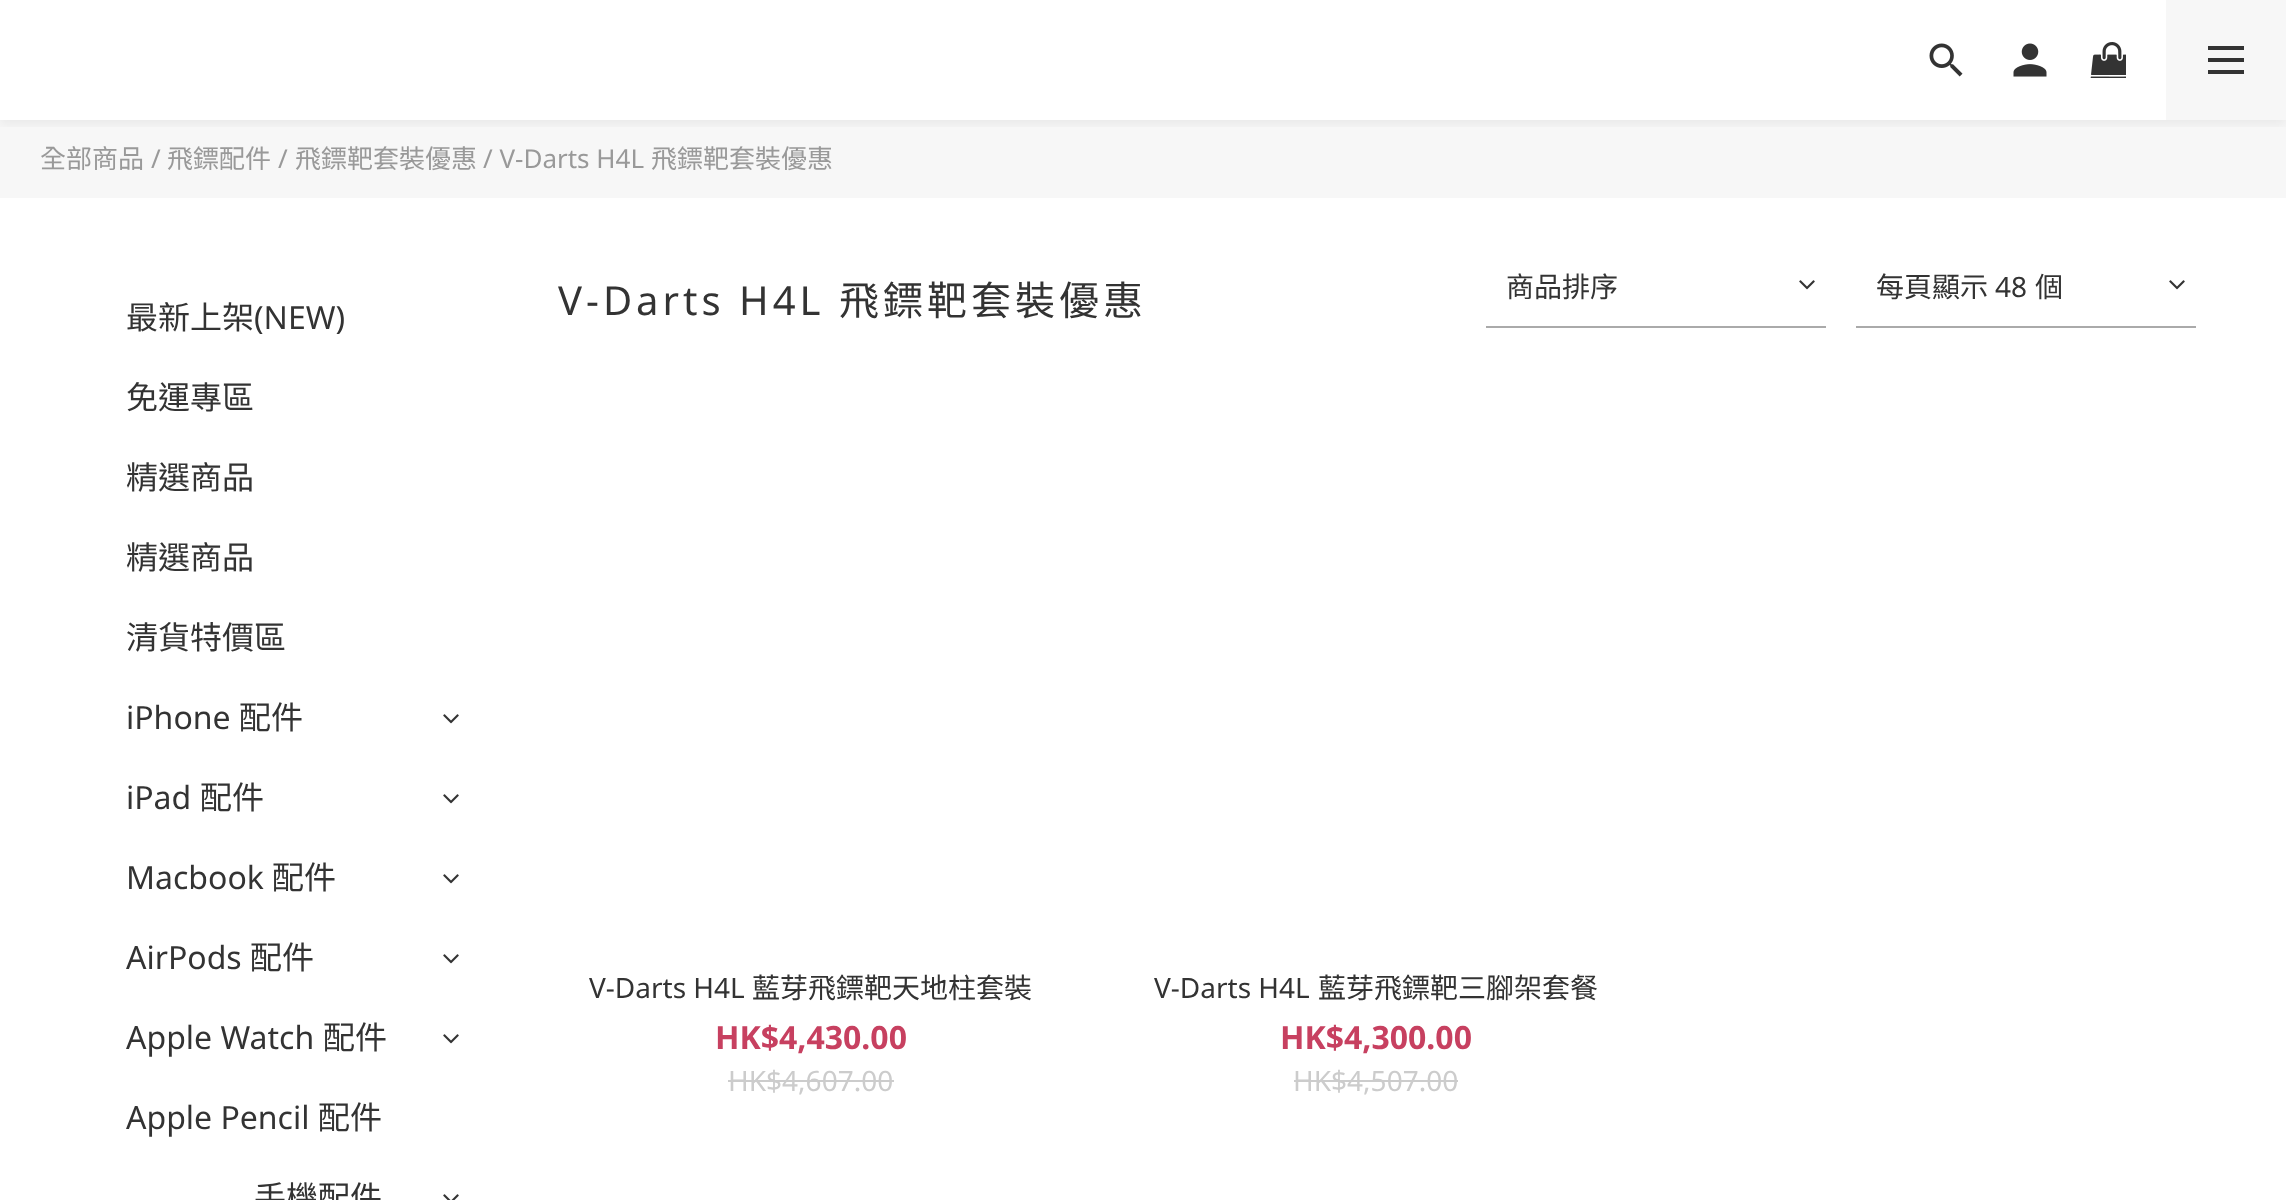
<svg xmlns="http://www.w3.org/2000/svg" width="2286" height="1200">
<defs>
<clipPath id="clip1"><rect x="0" y="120" width="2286" height="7"/></clipPath>
</defs>
<rect width="100%" height="100%" fill="#fff"/>
<rect y="120" width="2286" height="78" fill="#f7f7f7"/>
<g clip-path="url(#clip1)">
<rect y="4" width="2286" height="120" fill="#0000000f" filter="blur(6px)"/>
</g>
<image x="1929" y="43" width="34" height="34" href="media/1.png"/>
<image x="2013" y="43" width="34" height="34" href="media/2.png"/>
<image x="2090" y="42" width="36" height="36" href="media/3.png"/>
<rect x="2166" width="120" height="120" fill="#f7f7f7"/>
<rect x="2208" y="58" width="36" height="4" fill="#333"/>
<rect x="2208" y="46" width="36" height="4" fill="#333"/>
<rect x="2208" y="70" width="36" height="4" fill="#333"/>
<text x="40" y="168" style="font-family:Noto Sans TC;font-size:26px;fill:#999">全部商品</text>
<text x="151" y="168" style="font-family:Noto Sans;font-size:26px;fill:#999">/</text>
<text x="167" y="168" style="font-family:Noto Sans TC;font-size:26px;fill:#999">飛鏢配件</text>
<text x="278" y="168" style="font-family:Noto Sans;font-size:26px;fill:#999">/</text>
<text x="295" y="168" style="font-family:Noto Sans TC;font-size:26px;fill:#999">飛鏢靶套裝優惠</text>
<text x="483" y="168" style="font-family:Noto Sans;font-size:26px;fill:#999">/ V-Darts H4L</text>
<text x="651" y="168" style="font-family:Noto Sans TC;font-size:26px;fill:#999">飛鏢靶套裝優惠</text>
<text x="126" y="329" style="font-family:Noto Sans TC;font-size:32px;fill:#333">最新上架</text>
<text x="254" y="329" style="font-family:Noto Sans;font-size:32px;fill:#333">(NEW)</text>
<text x="126" y="409" style="font-family:Noto Sans TC;font-size:32px;fill:#333">免運專區</text>
<text x="126" y="489" style="font-family:Noto Sans TC;font-size:32px;fill:#333">精選商品</text>
<text x="126" y="569" style="font-family:Noto Sans TC;font-size:32px;fill:#333">精選商品</text>
<text x="126" y="649" style="font-family:Noto Sans TC;font-size:32px;fill:#333">清貨特價區</text>
<text x="126" y="729" style="font-family:Noto Sans;font-size:32px;fill:#333">iPhone</text>
<text x="239" y="729" style="font-family:Noto Sans TC;font-size:32px;fill:#333">配件</text>
<image x="443" y="714" width="16" height="10" href="media/4.png"/>
<text x="126" y="809" style="font-family:Noto Sans;font-size:32px;fill:#333">iPad</text>
<text x="200" y="809" style="font-family:Noto Sans TC;font-size:32px;fill:#333">配件</text>
<image x="443" y="794" width="16" height="10" href="media/4.png"/>
<text x="126" y="889" style="font-family:Noto Sans;font-size:32px;fill:#333">Macbook</text>
<text x="272" y="889" style="font-family:Noto Sans TC;font-size:32px;fill:#333">配件</text>
<image x="443" y="874" width="16" height="10" href="media/4.png"/>
<text x="126" y="969" style="font-family:Noto Sans;font-size:32px;fill:#333">AirPods</text>
<text x="250" y="969" style="font-family:Noto Sans TC;font-size:32px;fill:#333">配件</text>
<image x="443" y="954" width="16" height="10" href="media/4.png"/>
<text x="126" y="1049" style="font-family:Noto Sans;font-size:32px;fill:#333">Apple Watch</text>
<text x="323" y="1049" style="font-family:Noto Sans TC;font-size:32px;fill:#333">配件</text>
<image x="443" y="1034" width="16" height="10" href="media/4.png"/>
<text x="126" y="1129" style="font-family:Noto Sans;font-size:32px;fill:#333">Apple Pencil</text>
<text x="318" y="1129" style="font-family:Noto Sans TC;font-size:32px;fill:#333">配件</text>
<text x="254" y="1209" style="font-family:Noto Sans TC;font-size:32px;fill:#333">手機配件</text>
<image x="443" y="1194" width="16" height="6" href="media/5.png"/>
<text x="558" y="315" style="font-family:Noto Sans;font-size:40px;letter-spacing:4px;fill:#333">V-Darts H4L</text>
<text x="839" y="315" style="font-family:Noto Sans TC;font-size:40px;letter-spacing:4px;fill:#333">飛鏢靶套裝優惠</text>
<text x="1506" y="297" style="font-family:Noto Sans TC;font-size:28px;fill:#333">商品排序</text>
<rect x="1486" y="326" width="340" height="2" fill="#aaa"/>
<image x="1799" y="280" width="16" height="10" href="media/4.png"/>
<text x="1876" y="297" style="font-family:Noto Sans TC;font-size:28px;fill:#333">每頁顯示</text>
<text x="1995" y="297" style="font-family:Noto Sans;font-size:28px;fill:#333">48</text>
<text x="2035" y="297" style="font-family:Noto Sans TC;font-size:28px;fill:#333">個</text>
<rect x="1856" y="326" width="340" height="2" fill="#aaa"/>
<image x="2169" y="280" width="16" height="10" href="media/4.png"/>
<text x="589" y="998" style="font-family:Noto Sans;font-size:28px;fill:#333">V-Darts H4L</text>
<text x="752" y="998" style="font-family:Noto Sans TC;font-size:28px;fill:#333">藍芽飛鏢靶天地柱套裝</text>
<text x="715" y="1049" style="font-family:Noto Sans;font-size:32px;font-weight:bold;fill:#c74060">HK$4,430.00</text>
<text x="728" y="1091" style="font-family:Noto Sans;font-size:28px;fill:#ccc">HK$4,607.00</text>
<rect x="728" y="1080" width="166" height="2" fill="#ccc"/>
<text x="1154" y="998" style="font-family:Noto Sans;font-size:28px;fill:#333">V-Darts H4L</text>
<text x="1318" y="998" style="font-family:Noto Sans TC;font-size:28px;fill:#333">藍芽飛鏢靶三腳架套餐</text>
<text x="1280" y="1049" style="font-family:Noto Sans;font-size:32px;font-weight:bold;fill:#c74060">HK$4,300.00</text>
<text x="1293" y="1091" style="font-family:Noto Sans;font-size:28px;fill:#ccc">HK$4,507.00</text>
<rect x="1294" y="1080" width="164" height="2" fill="#ccc"/>
</svg>
